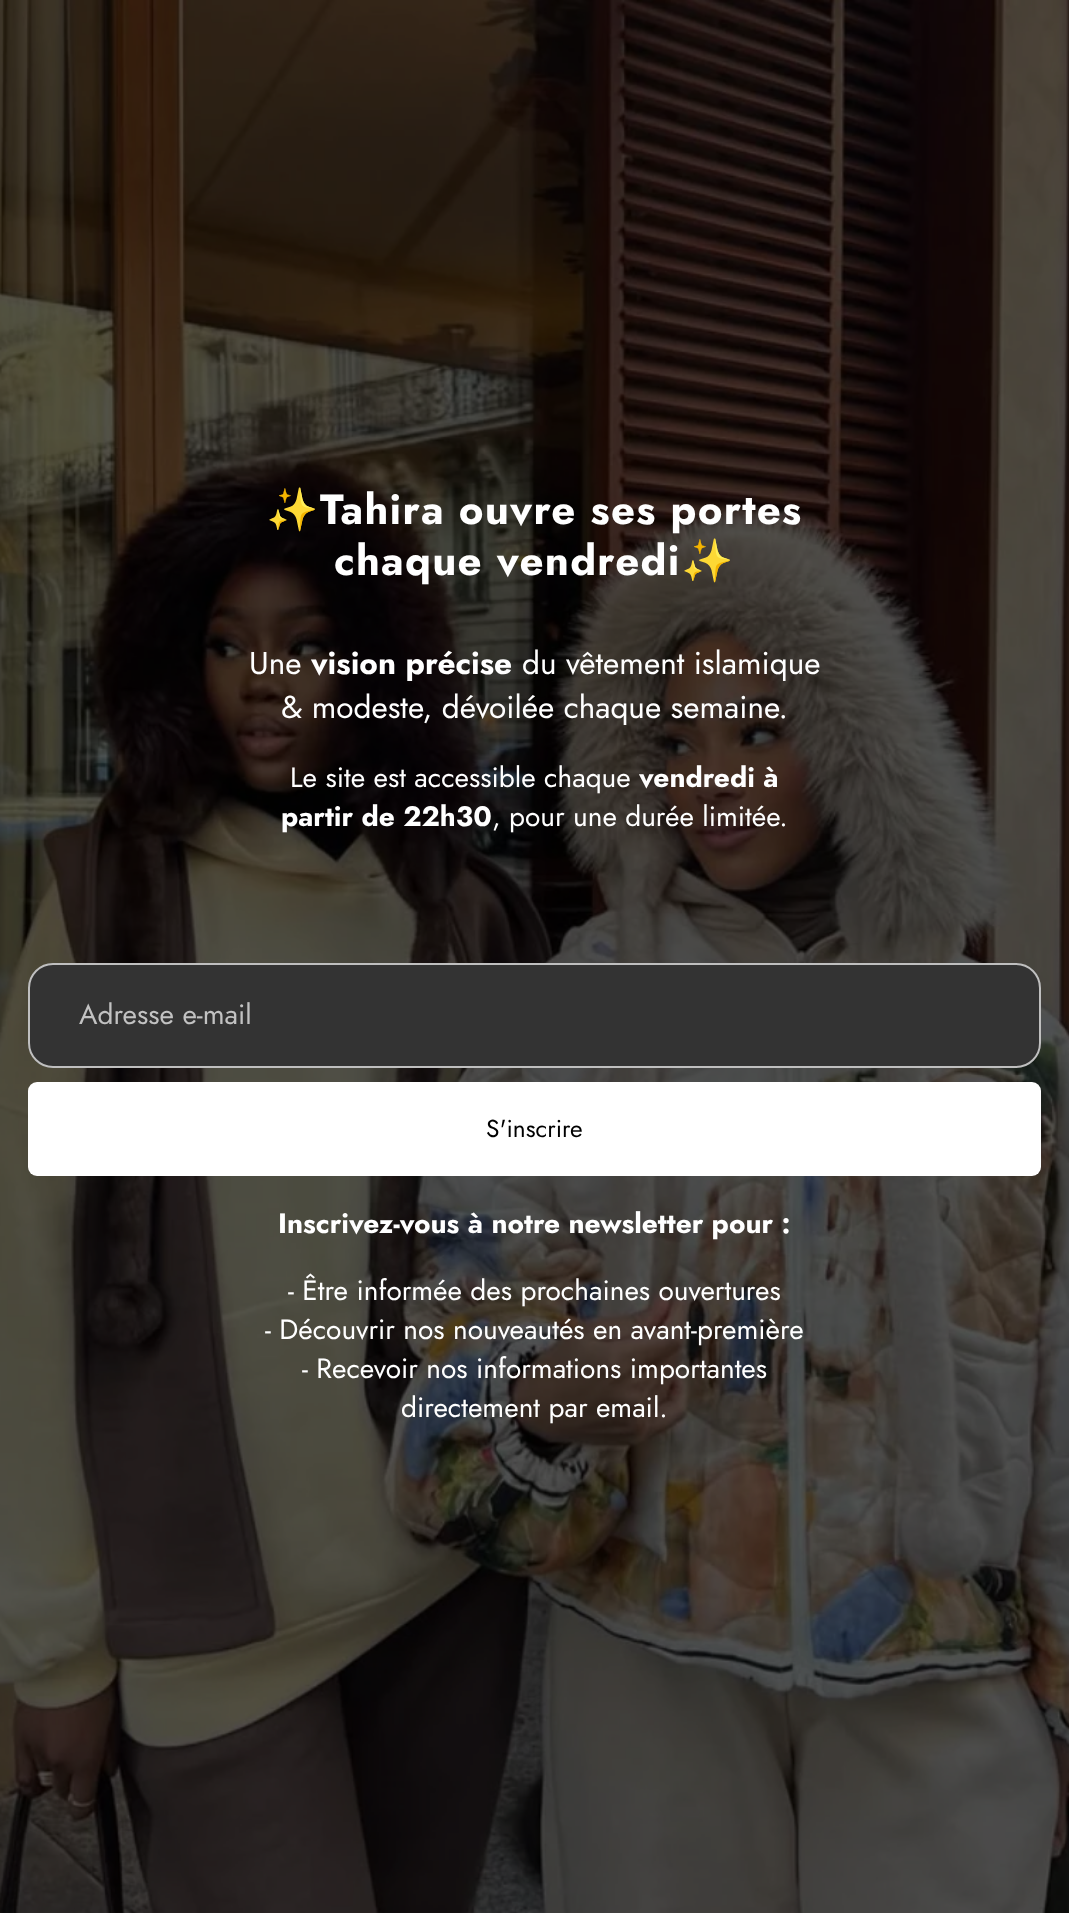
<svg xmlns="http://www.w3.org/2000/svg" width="1069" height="1913">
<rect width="100%" height="100%" fill="#fff"/>
<image x="0" y="0" width="1069" height="1913" href="media/1.png"/>
<text x="266" y="524" style="font-family:Noto Color Emoji;font-size:42px;font-weight:bold;letter-spacing:1.25px;fill:#fff">✨</text>
<text x="320" y="524" style="font-family:Jost;font-size:42px;font-weight:bold;letter-spacing:1.25px;fill:#fff">Tahira ouvre ses portes</text>
<text x="334" y="575" style="font-family:Jost;font-size:42px;font-weight:bold;letter-spacing:1.25px;fill:#fff">chaque vendredi</text>
<text x="681" y="575" style="font-family:Noto Color Emoji;font-size:42px;font-weight:bold;letter-spacing:1.25px;fill:#fff">✨</text>
<text x="249" y="674" style="font-family:Jost;font-size:31.5px;fill:#fff">Une</text>
<text x="311" y="674" style="font-family:Jost;font-size:31.5px;font-weight:bold;fill:#fff">vision précise</text>
<text x="522" y="674" style="font-family:Jost;font-size:31.5px;fill:#fff">du vêtement islamique</text>
<text x="281" y="718" style="font-family:Jost;font-size:31.5px;fill:#fff">&amp; modeste, dévoilée chaque semaine.</text>
<text x="290" y="787" style="font-family:Jost;font-size:28px;fill:#fff">Le site est accessible chaque</text>
<text x="639" y="787" style="font-family:Jost;font-size:28px;font-weight:bold;fill:#fff">vendredi à</text>
<text x="281" y="826" style="font-family:Jost;font-size:28px;font-weight:bold;fill:#fff">partir de 22h30</text>
<text x="492" y="826" style="font-family:Jost;font-size:28px;fill:#fff">, pour une durée limitée.</text>
<rect x="28" y="963" width="1013" height="105" rx="25" fill="#333"/>
<rect x="29" y="964" width="1011" height="103" rx="24" fill="none" stroke="#ffffffb0" stroke-width="2"/>
<text x="79" y="1024" style="font-family:Jost;font-size:28px;fill:#c2c2c2">Adresse e-mail</text>
<rect x="28" y="1082" width="1013" height="94" rx="9" fill="#fff"/>
<text x="486" y="1137" style="font-family:Jost;font-size:24.5px;fill:#000">S'inscrire</text>
<text x="278" y="1233" style="font-family:Jost;font-size:28px;font-weight:bold;fill:#fff">Inscrivez-vous à notre newsletter pour :</text>
<text x="288" y="1300" style="font-family:Jost;font-size:28px;fill:#fff">- Être informée des prochaines ouvertures</text>
<text x="265" y="1339" style="font-family:Jost;font-size:28px;fill:#fff">- Découvrir nos nouveautés en avant-première</text>
<text x="302" y="1378" style="font-family:Jost;font-size:28px;fill:#fff">- Recevoir nos informations importantes</text>
<text x="401" y="1417" style="font-family:Jost;font-size:28px;fill:#fff">directement par email.</text>
</svg>
